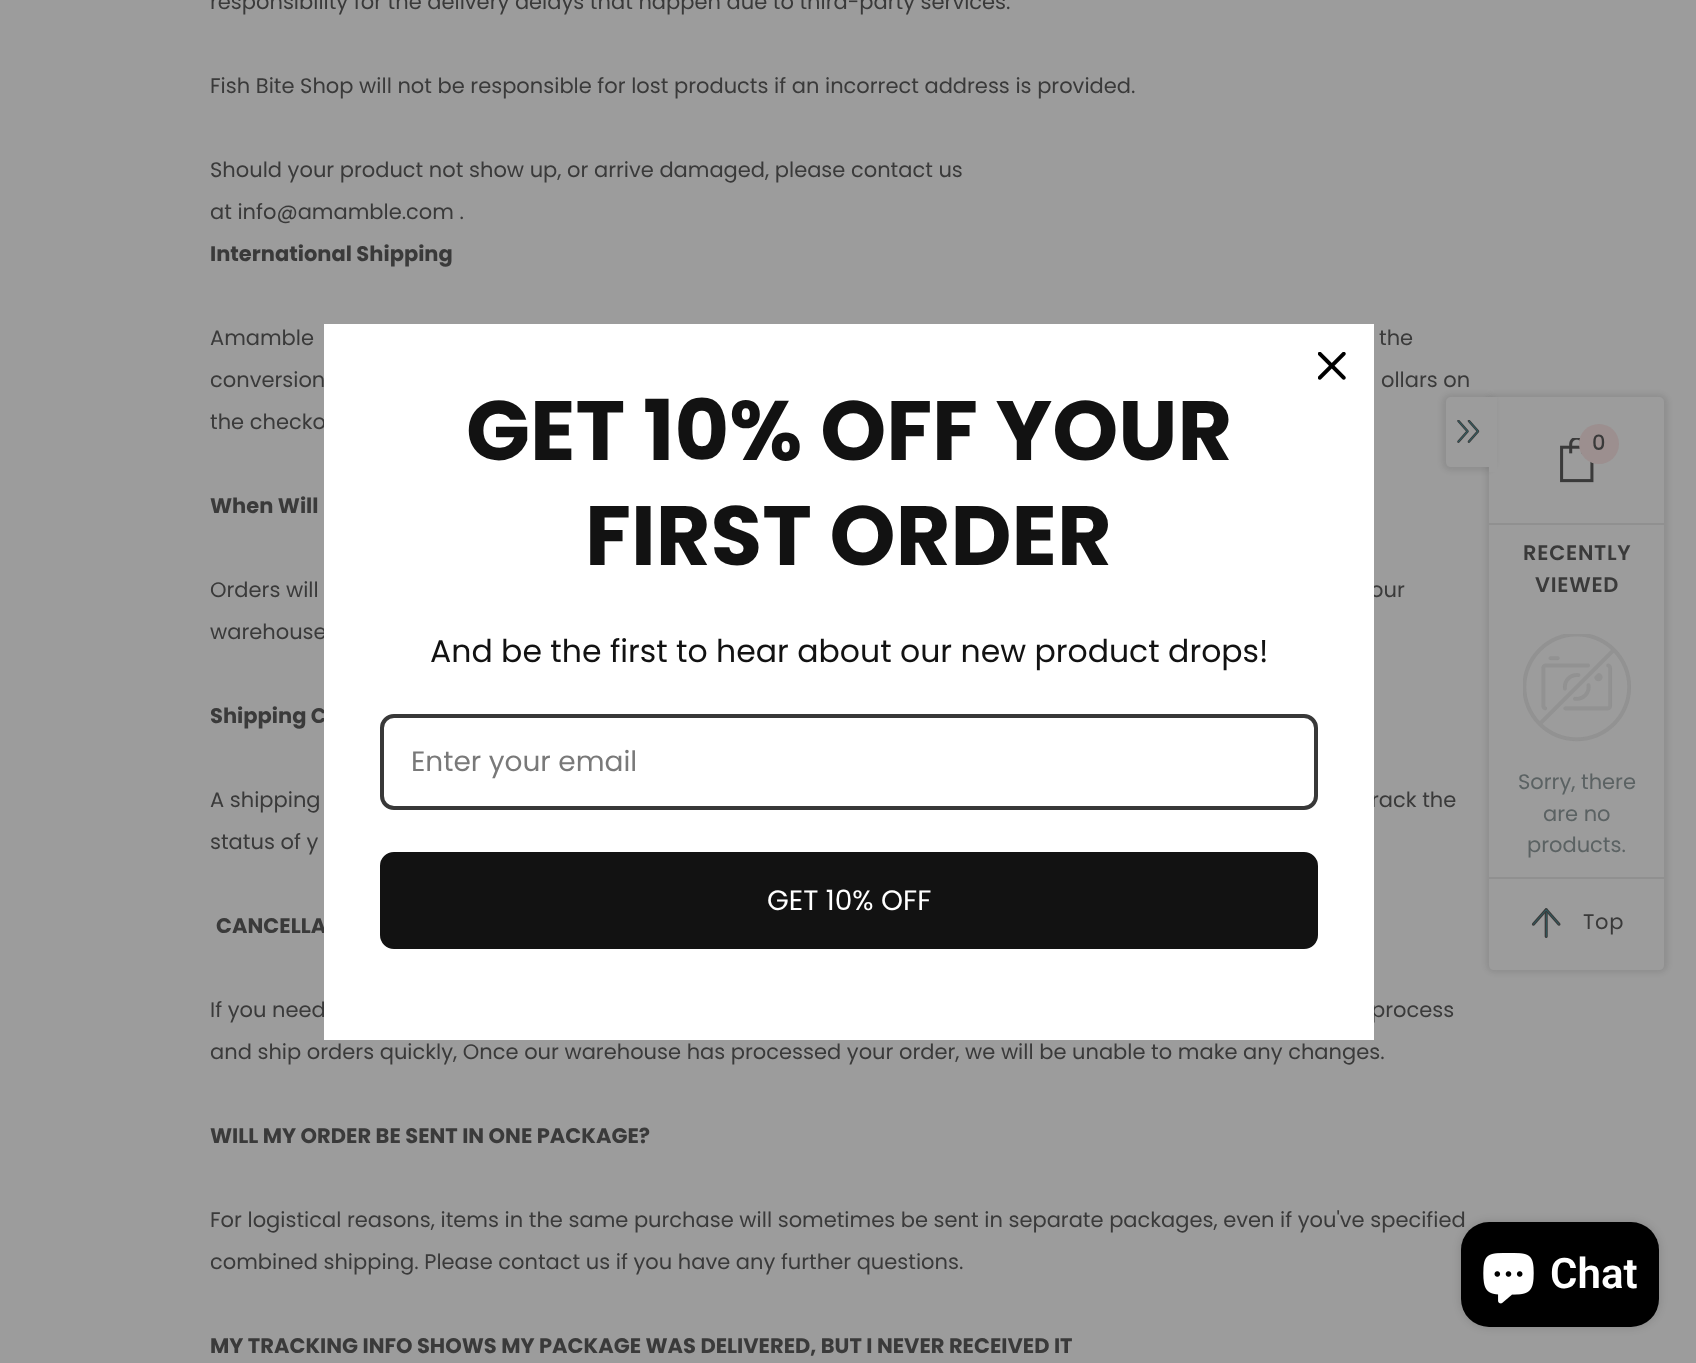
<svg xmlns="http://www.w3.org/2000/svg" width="1696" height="1363">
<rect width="100%" height="100%" fill="#9c9c9c"/>
<text x="210" y="9" style="font-family:Poppins;font-size:21px;fill:#3a3a3a">responsibility for the delivery delays that happen due to third-party services.</text>
<text x="210" y="93" style="font-family:Poppins;font-size:21px;fill:#3a3a3a">Fish Bite Shop will not be responsible for lost products if an incorrect address is provided.</text>
<text x="210" y="177" style="font-family:Poppins;font-size:21px;fill:#3a3a3a">Should your product not show up, or arrive damaged, please contact us</text>
<text x="210" y="219" style="font-family:Poppins;font-size:21px;fill:#3a3a3a">at info@amamble.com .</text>
<text x="210" y="261" style="font-family:Poppins;font-size:21px;font-weight:bold;fill:#3a3a3a">International Shipping</text>
<text x="210" y="345" style="font-family:Poppins;font-size:21px;fill:#3a3a3a">Amamble</text>
<text x="1379" y="345" style="font-family:Poppins;font-size:21px;fill:#3a3a3a">the</text>
<text x="210" y="387" style="font-family:Poppins;font-size:21px;fill:#3a3a3a">conversion</text>
<text x="1381" y="387" style="font-family:Poppins;font-size:21px;fill:#3a3a3a">ollars on</text>
<text x="210" y="429" style="font-family:Poppins;font-size:21px;fill:#3a3a3a">the checko</text>
<text x="210" y="513" style="font-family:Poppins;font-size:21px;font-weight:bold;fill:#3a3a3a">When Will</text>
<text x="210" y="597" style="font-family:Poppins;font-size:21px;fill:#3a3a3a">Orders will</text>
<text x="1370" y="597" style="font-family:Poppins;font-size:21px;fill:#3a3a3a">our</text>
<text x="210" y="639" style="font-family:Poppins;font-size:21px;fill:#3a3a3a">warehouse</text>
<text x="210" y="723" style="font-family:Poppins;font-size:21px;font-weight:bold;fill:#3a3a3a">Shipping C</text>
<text x="210" y="807" style="font-family:Poppins;font-size:21px;fill:#3a3a3a">A shipping</text>
<text x="1371" y="807" style="font-family:Poppins;font-size:21px;fill:#3a3a3a">rack the</text>
<text x="210" y="849" style="font-family:Poppins;font-size:21px;fill:#3a3a3a">status of y</text>
<text x="216" y="933" style="font-family:Poppins;font-size:21px;font-weight:bold;fill:#3a3a3a">CANCELLA</text>
<text x="210" y="1017" style="font-family:Poppins;font-size:21px;fill:#3a3a3a">If you need</text>
<text x="1371" y="1017" style="font-family:Poppins;font-size:21px;fill:#3a3a3a">process</text>
<text x="210" y="1059" style="font-family:Poppins;font-size:21px;fill:#3a3a3a">and ship orders quickly, Once our warehouse has processed your order, we will be unable to make any changes.</text>
<text x="210" y="1143" style="font-family:Poppins;font-size:21px;font-weight:bold;fill:#3a3a3a">WILL MY ORDER BE SENT IN ONE PACKAGE?</text>
<text x="210" y="1227" style="font-family:Poppins;font-size:21px;fill:#3a3a3a">For logistical reasons, items in the same purchase will sometimes be sent in separate packages, even if you've specified</text>
<text x="210" y="1269" style="font-family:Poppins;font-size:21px;fill:#3a3a3a">combined shipping. Please contact us if you have any further questions.</text>
<text x="210" y="1353" style="font-family:Poppins;font-size:21px;font-weight:bold;fill:#3a3a3a">MY TRACKING INFO SHOWS MY PACKAGE WAS DELIVERED, BUT I NEVER RECEIVED IT</text>
<rect x="324" y="324" width="1050" height="716" fill="#fff"/>
<image x="1318" y="352" width="28" height="28" href="media/1.png"/>
<text x="466" y="460" style="font-family:'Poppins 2';font-size:84px;font-weight:bold;fill:#121212">GET 10% OFF YOUR</text>
<text x="585" y="565" style="font-family:'Poppins 2';font-size:84px;font-weight:bold;fill:#121212">FIRST ORDER</text>
<text x="430" y="662" style="font-family:'Poppins 2';font-size:31.5px;fill:#121212">And be the first to hear about our new product drops!</text>
<rect x="382" y="716" width="934" height="92" rx="12" fill="none" stroke="#383838" stroke-width="4"/>
<text x="411" y="771" style="font-family:'Poppins 2';font-size:28px;fill:#797979">Enter your email</text>
<rect x="382" y="854" width="934" height="93" rx="12" fill="#121212" stroke="#121212" stroke-width="4"/>
<text x="767" y="910" style="font-family:'Poppins 2';font-size:28px;fill:#fff">GET 10% OFF</text>
<rect x="1486" y="394" width="182" height="579" rx="9" fill="#1c1c1c1a" filter="blur(2.5px)"/>
<path d="M1489 397h170c3 0 5 2 5 5v563c0 3-2 5-5 5h-165c-3 0-5-2-5-5z" fill="#9c9c9c"/>
<rect x="1442" y="394" width="53" height="77" rx="9" fill="#1c1c1c1a" filter="blur(2.5px)"/>
<path d="M1451 397h40v70h-40c-3 0-5-2-5-5v-60c0-3 2-5 5-5z" fill="#9c9c9c"/>
<image x="1457" y="420" width="23" height="23" href="media/2.png"/>
<rect x="1489" y="397" width="8" height="75" fill="#9c9c9c"/>
<rect x="1489" y="523" width="175" height="2" fill="#909090"/>
<image x="1560" y="438" width="34" height="45" href="media/3.png"/>
<circle cx="1599" cy="444" r="20" fill="#9c8f8f"/>
<text x="1592" y="450" style="font-family:Poppins;font-size:21px;font-weight:500;fill:#3a3a3a">0</text>
<text x="1523" y="560" style="font-family:Poppins;font-size:21px;font-weight:600;letter-spacing:0.75px;fill:#3a3a3a">RECENTLY</text>
<text x="1535" y="592" style="font-family:Poppins;font-size:21px;font-weight:600;letter-spacing:0.75px;fill:#3a3a3a">VIEWED</text>
<image x="1523" y="634" width="108" height="108" href="media/4.png"/>
<text x="1518" y="789" style="font-family:Poppins;font-size:21px;fill:#5b6263">Sorry, there</text>
<text x="1543" y="821" style="font-family:Poppins;font-size:21px;fill:#5b6263">are no</text>
<text x="1527" y="852" style="font-family:Poppins;font-size:21px;fill:#5b6263">products.</text>
<rect x="1489" y="877" width="175" height="2" fill="#909090"/>
<image x="1531" y="908" width="30" height="30" href="media/5.png"/>
<text x="1583" y="929" style="font-family:Poppins;font-size:21px;letter-spacing:0.75px;fill:#3a3a3a">Top</text>
<rect x="1461" y="1222" width="198" height="105" rx="28" fill="#00000026" filter="blur(4.5px)"/>
<rect x="1461" y="1222" width="198" height="105" rx="28" fill="#000"/>
<image x="1483" y="1253" width="51" height="51" href="media/6.png"/>
<text x="1550" y="1288" style="font-family:Roboto;font-size:42px;font-weight:600;fill:#fff">Chat</text>
</svg>
